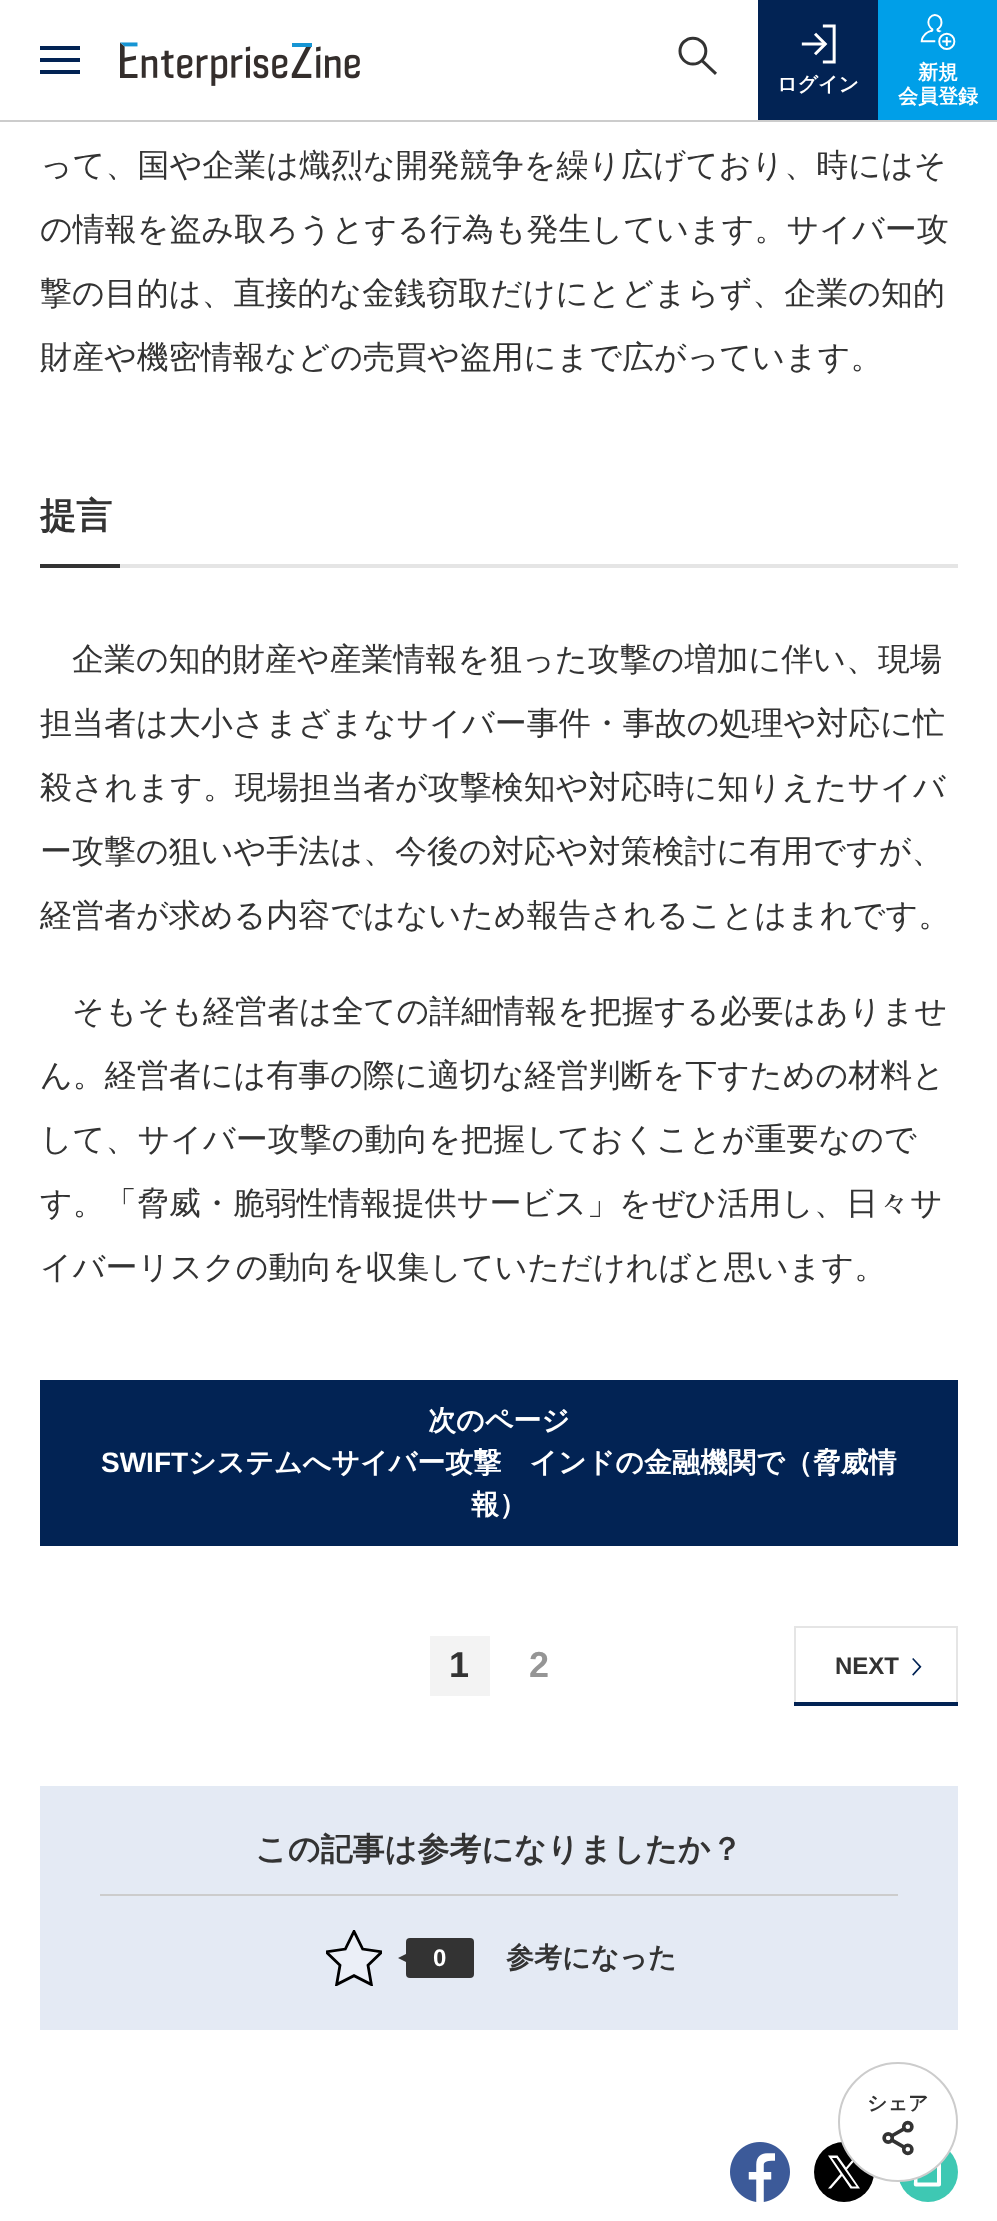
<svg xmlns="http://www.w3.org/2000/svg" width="997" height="2221">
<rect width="100%" height="100%" fill="#fff"/>
<rect y="120" width="997" height="2" fill="#ccc"/>
<rect x="40" y="58" width="40" height="4" fill="#022354"/>
<rect x="40" y="46" width="40" height="4" fill="#022354"/>
<rect x="40" y="70" width="40" height="4" fill="#022354"/>
<image x="120" y="42" width="240" height="44" href="media/1.png"/>
<image x="678" y="36" width="39" height="39" href="media/2.png"/>
<rect x="758" width="120" height="120" fill="#022354"/>
<image x="801" y="24" width="35" height="40" href="media/3.png"/>
<text x="777" y="91" style="font-family:WenQuanYi Zen Hei;font-size:20px;font-weight:bold;fill:#fff">ログイン</text>
<rect x="878" width="119" height="120" fill="#009fe8"/>
<image x="920" y="14" width="36" height="36" href="media/4.png"/>
<text x="918" y="79" style="font-family:WenQuanYi Zen Hei;font-size:20px;font-weight:bold;fill:#fff">新規</text>
<text x="898" y="103" style="font-family:WenQuanYi Zen Hei;font-size:20px;font-weight:bold;fill:#fff">会員登録</text>
<text x="40" y="176" style="font-family:WenQuanYi Zen Hei;font-size:32px;font-weight:500;fill:#333">って、国や企業は熾烈な開発競争を繰り広げており、時にはそ</text>
<text x="40" y="240" style="font-family:WenQuanYi Zen Hei;font-size:32px;font-weight:500;fill:#333">の情報を盗み取ろうとする行為も発生しています。サイバー攻</text>
<text x="40" y="304" style="font-family:WenQuanYi Zen Hei;font-size:32px;font-weight:500;fill:#333">撃の目的は、直接的な金銭窃取だけにとどまらず、企業の知的</text>
<text x="40" y="368" style="font-family:WenQuanYi Zen Hei;font-size:32px;font-weight:500;fill:#333">財産や機密情報などの売買や盗用にまで広がっています。</text>
<rect x="120" y="564" width="838" height="4" fill="#e5e5e5"/>
<text x="40" y="528" style="font-family:WenQuanYi Zen Hei;font-size:36px;font-weight:bold;fill:#333">提言</text>
<rect x="40" y="564" width="80" height="4" fill="#333"/>
<text x="72" y="670" style="font-family:WenQuanYi Zen Hei;font-size:32px;font-weight:500;fill:#333">企業の知的財産や産業情報を狙った攻撃の増加に伴い、現場</text>
<text x="40" y="734" style="font-family:WenQuanYi Zen Hei;font-size:32px;font-weight:500;fill:#333">担当者は大小さまざまなサイバー事件・事故の処理や対応に忙</text>
<text x="40" y="798" style="font-family:WenQuanYi Zen Hei;font-size:32px;font-weight:500;fill:#333">殺されます。現場担当者が攻撃検知や対応時に知りえたサイバ</text>
<text x="40" y="862" style="font-family:WenQuanYi Zen Hei;font-size:32px;font-weight:500;fill:#333">ー攻撃の狙いや手法は、今後の対応や対策検討に有用ですが、</text>
<text x="40" y="926" style="font-family:WenQuanYi Zen Hei;font-size:32px;font-weight:500;fill:#333">経営者が求める内容ではないため報告されることはまれです。</text>
<text x="72" y="1022" style="font-family:WenQuanYi Zen Hei;font-size:32px;font-weight:500;fill:#333">そもそも経営者は全ての詳細情報を把握する必要はありませ</text>
<text x="40" y="1086" style="font-family:WenQuanYi Zen Hei;font-size:32px;font-weight:500;fill:#333">ん。経営者には有事の際に適切な経営判断を下すための材料と</text>
<text x="40" y="1150" style="font-family:WenQuanYi Zen Hei;font-size:32px;font-weight:500;fill:#333">して、サイバー攻撃の動向を把握しておくことが重要なので</text>
<text x="40" y="1214" style="font-family:WenQuanYi Zen Hei;font-size:32px;font-weight:500;fill:#333">す。「脅威・脆弱性情報提供サービス」をぜひ活用し、日々サ</text>
<text x="40" y="1278" style="font-family:WenQuanYi Zen Hei;font-size:32px;font-weight:500;fill:#333">イバーリスクの動向を収集していただければと思います。</text>
<rect x="40" y="1380" width="918" height="166" fill="#022354"/>
<text x="428" y="1430" style="font-family:WenQuanYi Zen Hei;font-size:28px;font-weight:bold;fill:#fff">次のページ</text>
<text x="101" y="1472" style="font-family:Liberation Sans;font-size:28px;font-weight:bold;fill:#fff">SWIFT</text>
<text x="188" y="1472" style="font-family:WenQuanYi Zen Hei;font-size:28px;font-weight:bold;fill:#fff">システムへサイバー攻撃　インドの金融機関で（脅威情</text>
<text x="471" y="1514" style="font-family:WenQuanYi Zen Hei;font-size:28px;font-weight:bold;fill:#fff">報）</text>
<rect x="430" y="1636" width="60" height="60" fill="#f3f3f3"/>
<text x="449" y="1677" style="font-family:Liberation Sans;font-size:36px;font-weight:bold;fill:#333">1</text>
<text x="529" y="1677" style="font-family:Liberation Sans;font-size:36px;font-weight:bold;fill:#959595">2</text>
<rect x="795" y="1627" width="162" height="78" fill="none" stroke="#e5e5e5" stroke-width="2"/>
<text x="835" y="1674" style="font-family:Liberation Sans;font-size:24px;font-weight:bold;fill:#333">NEXT</text>
<image x="912" y="1658" width="10" height="18" href="media/5.png"/>
<rect x="794" y="1702" width="164" height="4" fill="#022354"/>
<rect x="40" y="1786" width="918" height="244" fill="#e4eaf4"/>
<rect x="100" y="1894" width="798" height="2" fill="#ccc"/>
<text x="255" y="1860" style="font-family:WenQuanYi Zen Hei;font-size:32px;font-weight:bold;fill:#333">この記事は参考になりましたか？</text>
<image x="326" y="1930" width="56" height="56" href="media/6.png"/>
<rect x="406" y="1938" width="68" height="40" rx="4" fill="#333"/>
<path d="M410 1952v12l-12-6z" fill="#333"/>
<text x="433" y="1966" style="font-family:Liberation Sans;font-size:24px;font-weight:bold;fill:#fff">0</text>
<text x="506" y="1967" style="font-family:WenQuanYi Zen Hei;font-size:28px;font-weight:bold;fill:#333">参考になった</text>
<image x="730" y="2142" width="60" height="60" href="media/7.png"/>
<circle cx="844" cy="2172" r="30" fill="#000"/>
<path d="M847 2169.5l12-14h-3l-10 12l-8.5-12h-9.5l12.5 18.5l-12.5 14.5h3l11-12.5l8.5 12.5h9.5zm-4 4.5l-11-16h4.5l20 28.5h-4.5z" fill="#fff"/>
<circle cx="928" cy="2172" r="30" fill="#3ec8b3"/>
<path d="M916 2186.5h19c7 0 6 0 6-6.5v-17.5c0-6 1-6.5-4.5-6.5h-13.5c-2 0-3 1.5-4.5 2.5c-4.5 5-4.5 4-4.5 10v12.5c0 2-1 5.5 2 5.5zm7-26.5c.5-.5 12.5-.5 14-.5v23h-19.5c0-2 0-17 .5-17.5zm-1 9.5c4.5 0 5.5 1 5.5-4c0-1 .5-4-2-3.5c-.5 0-1 .5-1 1v3l-3.5 .5c-1.5 .5-1 3 1 3z" fill="#fff" fill-rule="evenodd"/>
<circle cx="898" cy="2122" r="59" fill="#fff" stroke="#ccc" stroke-width="2"/>
<text x="867" y="2110" style="font-family:WenQuanYi Zen Hei;font-size:20px;font-weight:bold;fill:#333">シェア</text>
<image x="882" y="2120" width="32" height="36" href="media/8.png"/>
</svg>
